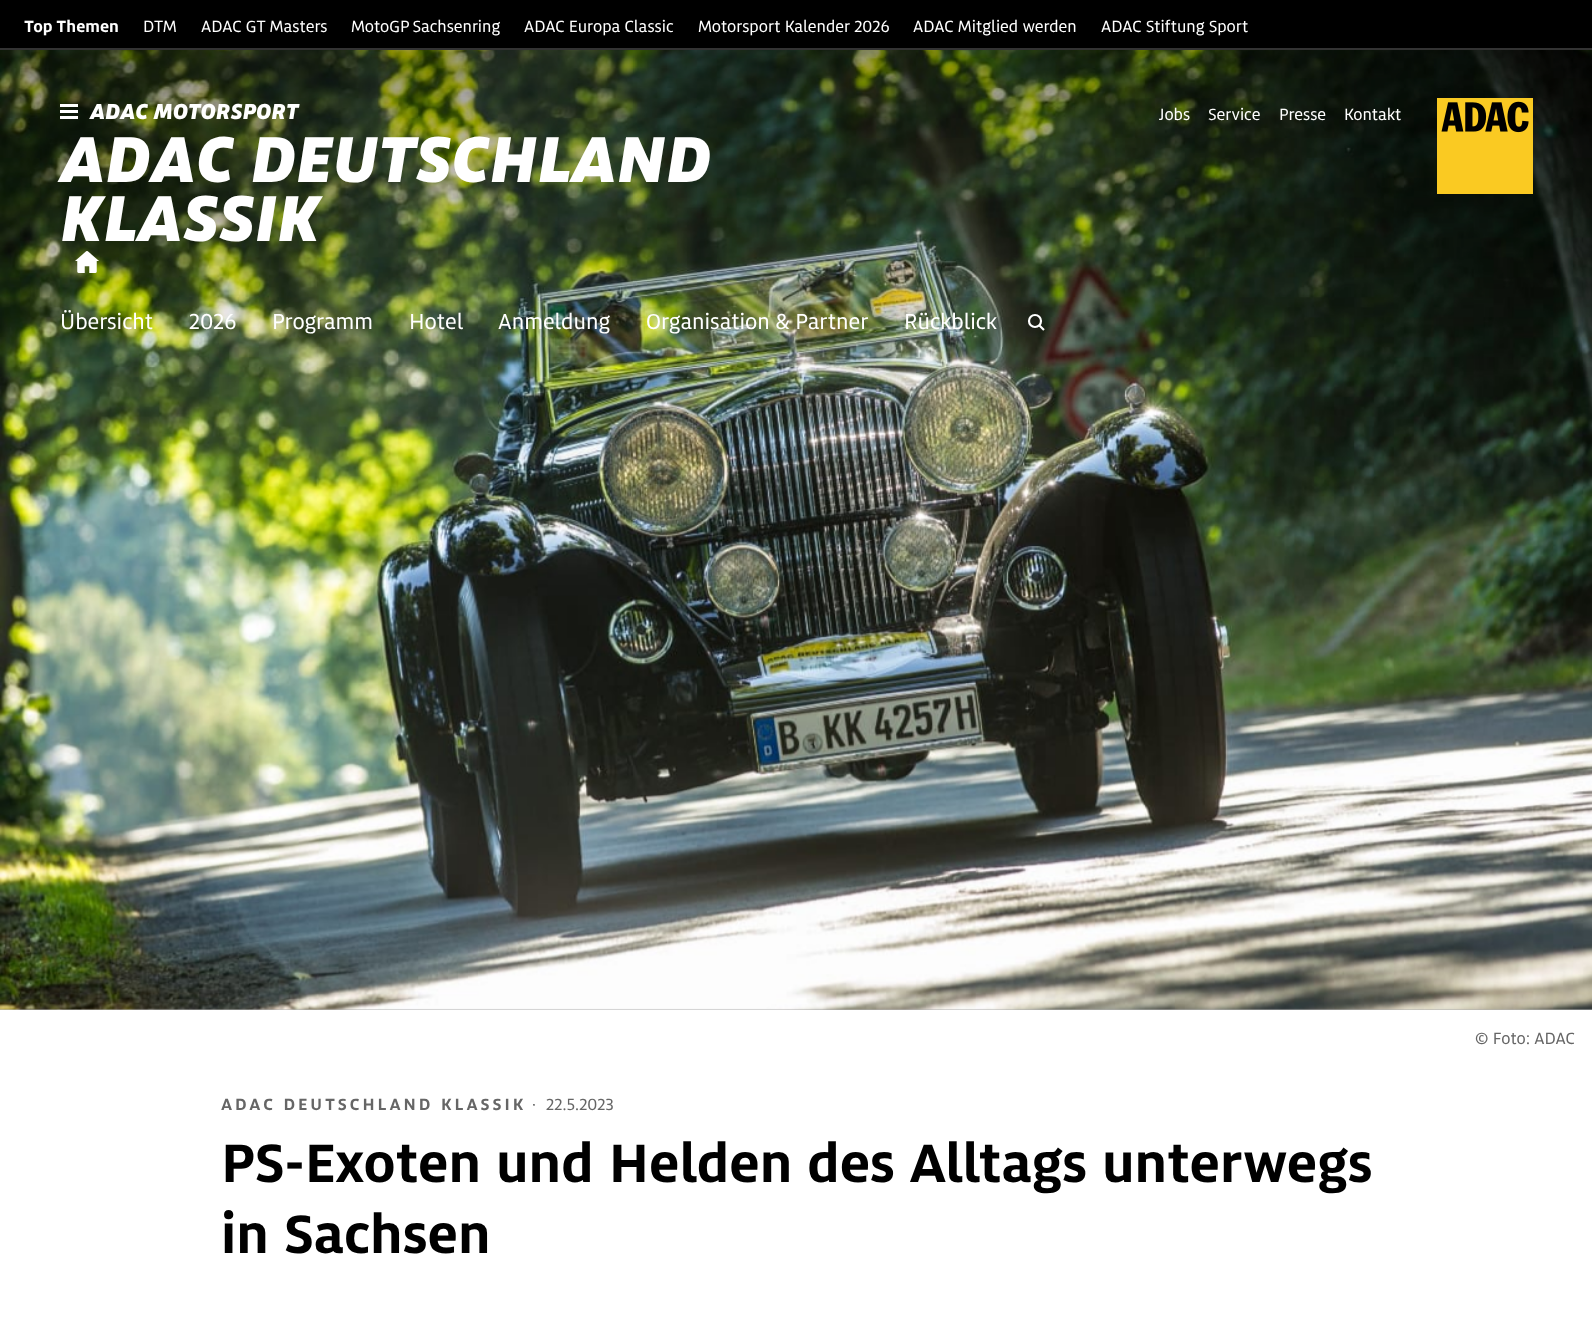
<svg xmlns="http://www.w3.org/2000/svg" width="1592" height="1324">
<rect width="100%" height="100%" fill="#fff"/>
<rect width="1592" height="48" fill="#000"/>
<rect y="48" width="1592" height="2" fill="#333"/>
<text x="24" y="32" style="font-family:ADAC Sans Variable;font-size:18px;font-weight:bold;fill:#fff">Top Themen</text>
<text x="143" y="32" style="font-family:ADAC Sans Variable;font-size:18px;fill:#fff">DTM</text>
<text x="201" y="32" style="font-family:ADAC Sans Variable;font-size:18px;fill:#fff">ADAC GT Masters</text>
<text x="351" y="32" style="font-family:ADAC Sans Variable;font-size:18px;fill:#fff">MotoGP Sachsenring</text>
<text x="524" y="32" style="font-family:ADAC Sans Variable;font-size:18px;fill:#fff">ADAC Europa Classic</text>
<text x="698" y="32" style="font-family:ADAC Sans Variable;font-size:18px;fill:#fff">Motorsport Kalender 2026</text>
<text x="913" y="32" style="font-family:ADAC Sans Variable;font-size:18px;fill:#fff">ADAC Mitglied werden</text>
<text x="1101" y="32" style="font-family:ADAC Sans Variable;font-size:18px;fill:#fff">ADAC Stiftung Sport</text>
<rect y="1008" width="1592" height="2" fill="#afafaf"/>
<image x="0" y="50" width="1592" height="960" href="media/1.png"/>
<rect x="60" y="104" width="18" height="3" fill="#fff"/>
<rect x="60" y="110" width="18" height="3" fill="#fff"/>
<rect x="60" y="116" width="18" height="3" fill="#fff"/>
<text x="90" y="119" style="font-family:ADAC Sans Variable;font-size:24px;font-weight:800;font-style:italic;fill:#fff">ADAC MOTORSPORT</text>
<text x="60" y="182" style="font-family:ADAC Sans Variable;font-size:72px;font-weight:800;font-style:italic;fill:#fff">ADAC DEUTSCHLAND</text>
<text x="60" y="241" style="font-family:ADAC Sans Variable;font-size:72px;font-weight:800;font-style:italic;fill:#fff">KLASSIK</text>
<image x="75" y="251" width="24" height="22" href="media/2.png"/>
<text x="1159" y="120" style="font-family:ADAC Sans Variable;font-size:18px;fill:#fff">Jobs</text>
<text x="1208" y="120" style="font-family:ADAC Sans Variable;font-size:18px;fill:#fff">Service</text>
<text x="1279" y="120" style="font-family:ADAC Sans Variable;font-size:18px;fill:#fff">Presse</text>
<text x="1344" y="120" style="font-family:ADAC Sans Variable;font-size:18px;fill:#fff">Kontakt</text>
<image x="1437" y="98" width="96" height="96" href="media/3.png"/>
<text x="60" y="329" style="font-family:ADAC Sans Variable;font-size:24px;fill:#fff">Übersicht</text>
<text x="189" y="329" style="font-family:ADAC Sans Variable;font-size:24px;fill:#fff">2026</text>
<text x="272" y="329" style="font-family:ADAC Sans Variable;font-size:24px;fill:#fff">Programm</text>
<text x="409" y="329" style="font-family:ADAC Sans Variable;font-size:24px;fill:#fff">Hotel</text>
<text x="498" y="329" style="font-family:ADAC Sans Variable;font-size:24px;fill:#fff">Anmeldung</text>
<text x="646" y="329" style="font-family:ADAC Sans Variable;font-size:24px;fill:#fff">Organisation &amp; Partner</text>
<text x="904" y="329" style="font-family:ADAC Sans Variable;font-size:24px;fill:#fff">Rückblick</text>
<circle cx="1035" cy="321" r="6" fill="none" stroke="#fff" stroke-width="2.2"/>
<path d="M1039 325l5 5" fill="none" stroke="#fff" stroke-width="2.2"/>
<text x="1475" y="1044" style="font-family:ADAC Sans Variable;font-size:18px;fill:#666">© Foto: ADAC</text>
<text x="221" y="1110" style="font-family:ADAC Sans Variable;font-size:18px;font-weight:bold;letter-spacing:3px;fill:#666">ADAC DEUTSCHLAND KLASSIK</text>
<text x="532" y="1110" style="font-family:ADAC Sans Variable;font-size:18px;fill:#666">·</text>
<text x="546" y="1110" style="font-family:ADAC Sans Variable;font-size:18px;fill:#666">22.5.2023</text>
<text x="221" y="1182" style="font-family:ADAC Sans Variable;font-size:60px;font-weight:bold;fill:#000">PS-Exoten und Helden des Alltags unterwegs</text>
<text x="221" y="1253" style="font-family:ADAC Sans Variable;font-size:60px;font-weight:bold;fill:#000">in Sachsen</text>
</svg>
